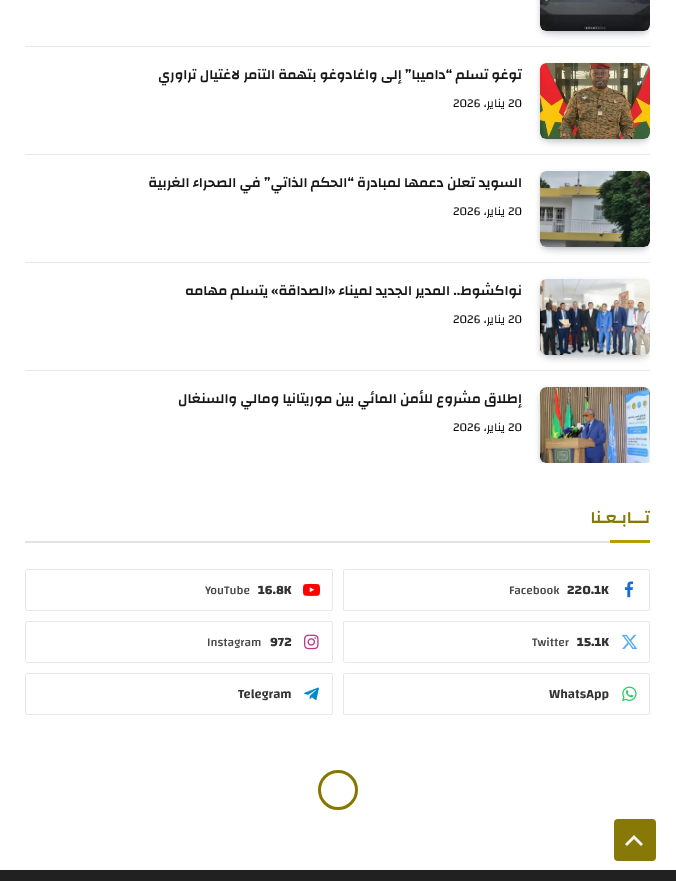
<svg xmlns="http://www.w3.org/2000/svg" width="676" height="881">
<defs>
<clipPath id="clip1"><rect x="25" y="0" width="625" height="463"/></clipPath>
</defs>
<rect width="100%" height="100%" fill="#fff"/>
<g clip-path="url(#clip1)">
<rect x="546" y="-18" width="98" height="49" fill="#070a1933" filter="blur(6px)"/>
<rect x="541" y="-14" width="108" height="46" rx="5" fill="#070a1933" filter="blur(3px)"/>
</g>
<image x="540" y="0" width="110" height="31" href="media/1.png"/>
<rect x="25" y="46" width="625" height="1" fill="#e8e8e8"/>
<g clip-path="url(#clip1)">
<rect x="546" y="75" width="98" height="64" fill="#070a1933" filter="blur(6px)"/>
<rect x="541" y="66" width="108" height="74" rx="5" fill="#070a1933" filter="blur(3px)"/>
</g>
<image x="540" y="63" width="110" height="76" href="media/2.png"/>
<text x="522" y="79" style="font-family:Changa;font-size:14px;font-weight:600;direction:rtl;fill:#161616">توغو تسلم “داميبا” إلى واغادوغو بتهمة التآمر لاغتيال تراوري</text>
<text x="508" y="107" style="font-family:Changa;font-size:12px;fill:#0a0a0a">20</text>
<text x="505" y="107" style="font-family:Changa;font-size:12px;direction:rtl;fill:#0a0a0a">يناير،</text>
<text x="453" y="107" style="font-family:Changa;font-size:12px;fill:#0a0a0a">2026</text>
<rect x="25" y="154" width="625" height="1" fill="#e8e8e8"/>
<g clip-path="url(#clip1)">
<rect x="546" y="183" width="98" height="64" fill="#070a1933" filter="blur(6px)"/>
<rect x="541" y="174" width="108" height="74" rx="5" fill="#070a1933" filter="blur(3px)"/>
</g>
<image x="540" y="171" width="110" height="76" href="media/3.png"/>
<text x="522" y="187" style="font-family:Changa;font-size:14px;font-weight:600;direction:rtl;fill:#161616">السويد تعلن دعمها لمبادرة “الحكم الذاتي” في الصحراء الغربية</text>
<text x="508" y="215" style="font-family:Changa;font-size:12px;fill:#0a0a0a">20</text>
<text x="505" y="215" style="font-family:Changa;font-size:12px;direction:rtl;fill:#0a0a0a">يناير،</text>
<text x="453" y="215" style="font-family:Changa;font-size:12px;fill:#0a0a0a">2026</text>
<rect x="25" y="262" width="625" height="1" fill="#e8e8e8"/>
<g clip-path="url(#clip1)">
<rect x="546" y="291" width="98" height="64" fill="#070a1933" filter="blur(6px)"/>
<rect x="541" y="282" width="108" height="74" rx="5" fill="#070a1933" filter="blur(3px)"/>
</g>
<image x="540" y="279" width="110" height="76" href="media/4.png"/>
<text x="522" y="295" style="font-family:Changa;font-size:14px;font-weight:600;direction:rtl;fill:#161616">نواكشوط.. المدير الجديد لميناء «الصداقة» يتسلم مهامه</text>
<text x="508" y="323" style="font-family:Changa;font-size:12px;fill:#0a0a0a">20</text>
<text x="505" y="323" style="font-family:Changa;font-size:12px;direction:rtl;fill:#0a0a0a">يناير،</text>
<text x="453" y="323" style="font-family:Changa;font-size:12px;fill:#0a0a0a">2026</text>
<rect x="25" y="370" width="625" height="1" fill="#e8e8e8"/>
<g clip-path="url(#clip1)">
<rect x="546" y="399" width="98" height="64" fill="#070a1933" filter="blur(6px)"/>
<rect x="541" y="390" width="108" height="74" rx="5" fill="#070a1933" filter="blur(3px)"/>
</g>
<image x="540" y="387" width="110" height="76" href="media/5.png"/>
<text x="522" y="403" style="font-family:Changa;font-size:14px;font-weight:600;direction:rtl;fill:#161616">إطلاق مشروع للأمن المائي بين موريتانيا ومالي والسنغال</text>
<text x="508" y="431" style="font-family:Changa;font-size:12px;fill:#0a0a0a">20</text>
<text x="505" y="431" style="font-family:Changa;font-size:12px;direction:rtl;fill:#0a0a0a">يناير،</text>
<text x="453" y="431" style="font-family:Changa;font-size:12px;fill:#0a0a0a">2026</text>
<rect x="25" y="541" width="585" height="2" fill="#e2e2e2"/>
<text x="650" y="523" style="font-family:Changa;font-size:17px;font-weight:600;direction:rtl;fill:#877808">تـــابـعـنا</text>
<rect x="610" y="540" width="40" height="3" fill="#b59f00"/>
<rect x="343.5" y="569.5" width="306" height="41" rx="1.5" fill="none" stroke="#e8e8e8"/>
<image x="624" y="581" width="10" height="17" href="media/6.png"/>
<text x="567" y="594" style="font-family:Changa;font-size:13px;font-weight:bold;fill:#333">220.1K</text>
<text x="509" y="594" style="font-family:Changa;font-size:12px;font-weight:500;fill:#474747">Facebook</text>
<rect x="25.5" y="569.5" width="307" height="41" rx="1.5" fill="none" stroke="#e8e8e8"/>
<image x="303" y="583" width="17" height="13" href="media/7.png"/>
<text x="258" y="594" style="font-family:Changa;font-size:13px;font-weight:bold;fill:#333">16.8K</text>
<text x="205" y="594" style="font-family:Changa;font-size:12px;font-weight:500;fill:#474747">YouTube</text>
<rect x="343.5" y="621.5" width="306" height="41" rx="1.5" fill="none" stroke="#e8e8e8"/>
<image x="621" y="634" width="17" height="15" href="media/8.png"/>
<text x="577" y="646" style="font-family:Changa;font-size:13px;font-weight:bold;fill:#333">15.1K</text>
<text x="532" y="646" style="font-family:Changa;font-size:12px;font-weight:500;fill:#474747">Twitter</text>
<rect x="25.5" y="621.5" width="307" height="41" rx="1.5" fill="none" stroke="#e8e8e8"/>
<image x="304" y="634" width="15" height="16" href="media/9.png"/>
<text x="270" y="646" style="font-family:Changa;font-size:13px;font-weight:bold;fill:#333">972</text>
<text x="207" y="646" style="font-family:Changa;font-size:12px;font-weight:500;fill:#474747">Instagram</text>
<rect x="343.5" y="673.5" width="306" height="41" rx="1.5" fill="none" stroke="#e8e8e8"/>
<image x="622" y="686" width="15" height="16" href="media/10.png"/>
<text x="549" y="698" style="font-family:Changa;font-size:13px;font-weight:600;fill:#333">WhatsApp</text>
<rect x="25.5" y="673.5" width="307" height="41" rx="1.5" fill="none" stroke="#e8e8e8"/>
<image x="304" y="687" width="15" height="13" href="media/11.png"/>
<text x="238" y="698" style="font-family:Changa;font-size:13px;font-weight:600;fill:#333">Telegram</text>
<circle cx="338" cy="790" r="18.5" fill="none" stroke="#877700" stroke-width="3"/>
<rect y="870" width="676" height="11" fill="#212121"/>
<rect x="614" y="819" width="42" height="42" rx="4" fill="#877808"/>
<path d="M641 846l-7-7l-7 7l-2-2l9-9l9 9z" fill="#f4f4f4"/>
</svg>
